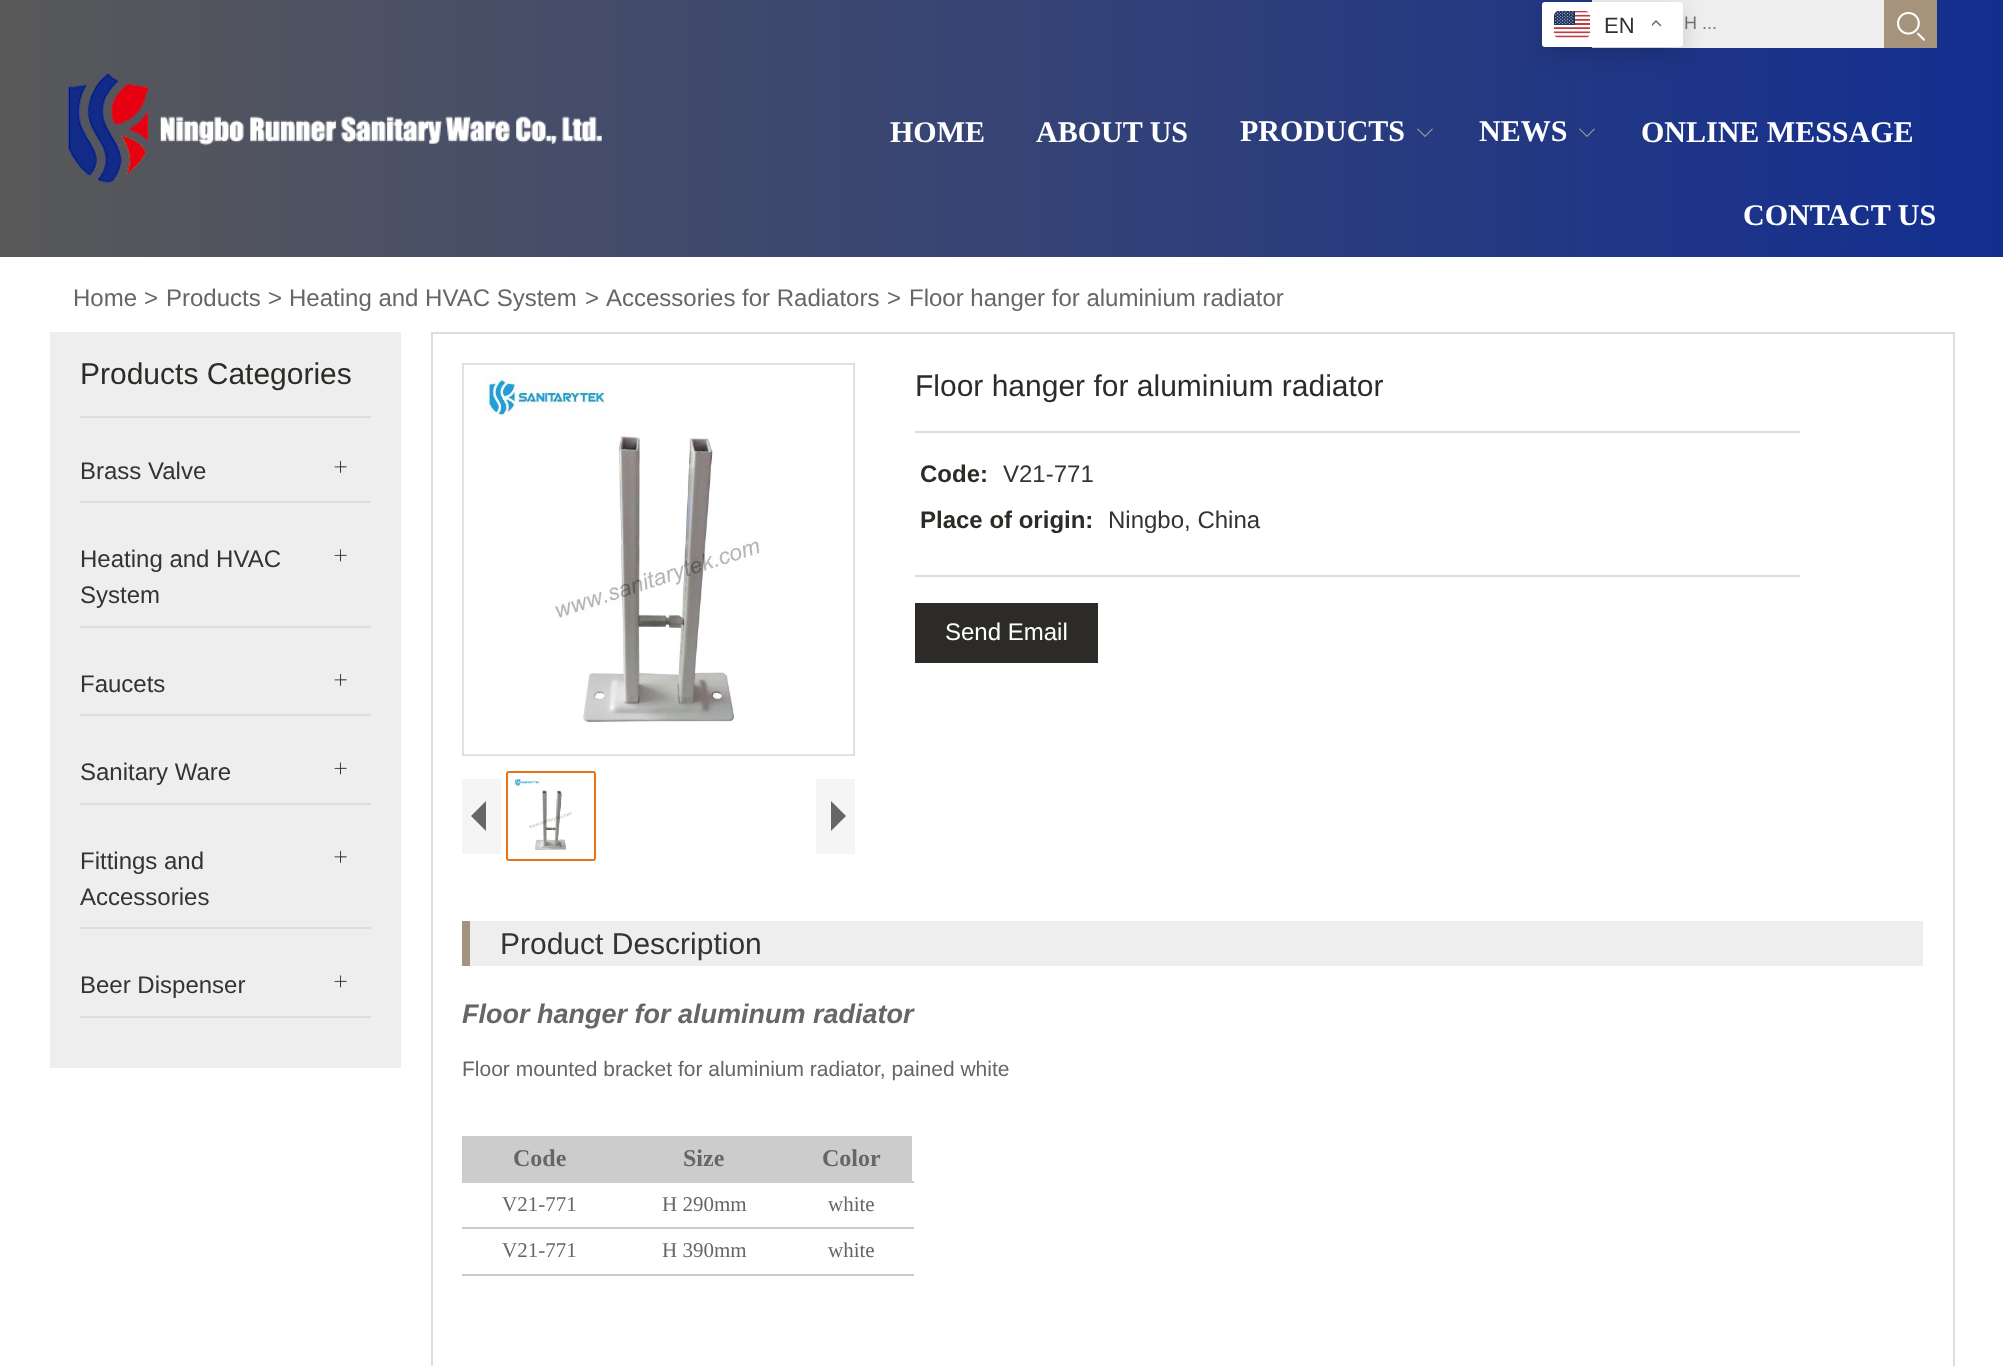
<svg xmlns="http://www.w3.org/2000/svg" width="2003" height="1366">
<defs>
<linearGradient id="g1" gradientUnits="userSpaceOnUse" x1="0" y1="128" x2="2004" y2="128"><stop offset="0" stop-color="#595959"/><stop offset="1" stop-color="#132e90"/></linearGradient>
</defs>
<rect width="100%" height="100%" fill="#fff"/>
<rect width="2003" height="257" fill="url(#g1)"/>
<rect x="1592" width="292" height="48" fill="#eee"/>
<text x="1684" y="29" style="font-family:Liberation Sans;font-size:18px;fill:#757575">H ...</text>
<rect x="1884" width="53" height="48" fill="#a6937c"/>
<image x="1897" y="11" width="28" height="30" href="media/1.png"/>
<image x="67" y="72" width="535" height="112" href="media/2.png"/>
<text x="890" y="142" style="font-family:Liberation Serif;font-size:30px;font-weight:bold;fill:#fff">HOME</text>
<text x="1036" y="142" style="font-family:Liberation Serif;font-size:30px;font-weight:bold;fill:#fff">ABOUT US</text>
<text x="1240" y="141" style="font-family:Liberation Serif;font-size:30px;font-weight:bold;fill:#fff">PRODUCTS</text>
<image x="1417" y="128" width="16" height="9" href="media/3.png"/>
<text x="1479" y="141" style="font-family:Liberation Serif;font-size:30px;font-weight:bold;fill:#fff">NEWS</text>
<image x="1579" y="128" width="16" height="9" href="media/4.png"/>
<text x="1641" y="142" style="font-family:Liberation Serif;font-size:30px;font-weight:bold;fill:#fff">ONLINE MESSAGE</text>
<text x="1743" y="225" style="font-family:Liberation Serif;font-size:30px;font-weight:bold;fill:#fff">CONTACT US</text>
<rect x="1542" y="9" width="141" height="45" rx="3" fill="#00000026" filter="blur(11px)"/>
<rect x="1542" y="2" width="141" height="45" rx="3" fill="#fff"/>
<image x="1554" y="11" width="36" height="27" href="media/5.png"/>
<text x="1604" y="33" style="font-family:Liberation Sans;font-size:22px;fill:#333">EN</text>
<image x="1652" y="20" width="10" height="7" href="media/6.png"/>
<text x="73" y="306" style="font-family:Liberation Sans;font-size:24px;fill:#666">Home</text>
<text x="144" y="306" style="font-family:Liberation Sans;font-size:24px;fill:#666">&gt;</text>
<text x="166" y="306" style="font-family:Liberation Sans;font-size:24px;fill:#666">Products</text>
<text x="268" y="306" style="font-family:Liberation Sans;font-size:24px;fill:#666">&gt;</text>
<text x="289" y="306" style="font-family:Liberation Sans;font-size:24px;fill:#666">Heating and HVAC System</text>
<text x="585" y="306" style="font-family:Liberation Sans;font-size:24px;fill:#666">&gt;</text>
<text x="606" y="306" style="font-family:Liberation Sans;font-size:24px;fill:#666">Accessories for Radiators</text>
<text x="887" y="306" style="font-family:Liberation Sans;font-size:24px;fill:#666">&gt;</text>
<text x="909" y="306" style="font-family:Liberation Sans;font-size:24px;fill:#666">Floor hanger for aluminium radiator</text>
<rect x="50" y="332" width="351" height="736" fill="#eee"/>
<rect x="80" y="416" width="291" height="2" fill="#ddd"/>
<text x="80" y="384" style="font-family:Liberation Sans;font-size:30px;fill:#2d2b27">Products Categories</text>
<rect x="80" y="501" width="291" height="2" fill="#ddd"/>
<text x="80" y="479" style="font-family:Liberation Sans;font-size:24px;fill:#333">Brass Valve</text>
<image x="334" y="460" width="13" height="13" href="media/7.png"/>
<rect x="80" y="626" width="291" height="2" fill="#ddd"/>
<text x="80" y="567" style="font-family:Liberation Sans;font-size:24px;fill:#333">Heating and HVAC</text>
<text x="80" y="603" style="font-family:Liberation Sans;font-size:24px;fill:#333">System</text>
<image x="334" y="549" width="13" height="13" href="media/8.png"/>
<rect x="80" y="714" width="291" height="2" fill="#ddd"/>
<text x="80" y="692" style="font-family:Liberation Sans;font-size:24px;fill:#333">Faucets</text>
<image x="334" y="673" width="13" height="13" href="media/7.png"/>
<rect x="80" y="803" width="291" height="2" fill="#ddd"/>
<text x="80" y="780" style="font-family:Liberation Sans;font-size:24px;fill:#333">Sanitary Ware</text>
<image x="334" y="762" width="13" height="13" href="media/8.png"/>
<rect x="80" y="927" width="291" height="2" fill="#ddd"/>
<text x="80" y="869" style="font-family:Liberation Sans;font-size:24px;fill:#333">Fittings and</text>
<text x="80" y="905" style="font-family:Liberation Sans;font-size:24px;fill:#333">Accessories</text>
<image x="334" y="850" width="13" height="13" href="media/7.png"/>
<rect x="80" y="1016" width="291" height="2" fill="#ddd"/>
<text x="80" y="993" style="font-family:Liberation Sans;font-size:24px;fill:#333">Beer Dispenser</text>
<image x="334" y="975" width="13" height="13" href="media/8.png"/>
<rect x="432" y="333" width="1522" height="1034" fill="none" stroke="#ddd" stroke-width="2"/>
<rect x="463" y="364" width="391" height="391" fill="none" stroke="#ddd" stroke-width="2"/>
<image x="463" y="364" width="391" height="391" href="media/9.png"/>
<rect x="462" y="779" width="39" height="75" fill="#f5f5f5"/>
<path d="M486 801v30l-15-15z" fill="#666"/>
<rect x="507" y="772" width="88" height="88" rx="2" fill="none" stroke="#e57418" stroke-width="2"/>
<image x="514" y="778" width="58" height="72" href="media/10.png"/>
<rect x="816" y="779" width="39" height="75" fill="#f5f5f5"/>
<path d="M831 831v-30l15 15z" fill="#666"/>
<rect x="915" y="431" width="885" height="2" fill="#ddd"/>
<text x="915" y="396" style="font-family:Liberation Sans;font-size:30px;fill:#2d2b27">Floor hanger for aluminium radiator</text>
<text x="920" y="482" style="font-family:Liberation Sans;font-size:24px;font-weight:bold;fill:#2d2b27">Code:</text>
<text x="1003" y="482" style="font-family:Liberation Sans;font-size:24px;fill:#333">V21-771</text>
<text x="920" y="528" style="font-family:Liberation Sans;font-size:24px;font-weight:bold;fill:#2d2b27">Place of origin:</text>
<text x="1108" y="528" style="font-family:Liberation Sans;font-size:24px;fill:#333">Ningbo, China</text>
<rect x="915" y="575" width="885" height="2" fill="#ddd"/>
<rect x="915" y="603" width="183" height="60" fill="#2d2b27"/>
<text x="945" y="640" style="font-family:Liberation Sans;font-size:24px;fill:#fff">Send Email</text>
<rect x="470" y="921" width="1453" height="45" fill="#eee"/>
<rect x="462" y="921" width="8" height="45" fill="#a6937c"/>
<text x="500" y="954" style="font-family:Liberation Sans;font-size:30px;fill:#333">Product Description</text>
<text x="462" y="1023" style="font-family:Liberation Sans;font-size:27px;font-weight:bold;font-style:italic;fill:#666">Floor hanger for aluminum radiator</text>
<text x="462" y="1076" style="font-family:Liberation Sans;font-size:21px;fill:#666">Floor mounted bracket for aluminium radiator, pained white</text>
<rect x="462" y="1136" width="450" height="45" fill="#ccc"/>
<rect x="462" y="1181" width="452" height="2" fill="#ccc"/>
<text x="513" y="1166" style="font-family:Liberation Serif;font-size:24px;font-weight:bold;fill:#666">Code</text>
<text x="683" y="1166" style="font-family:Liberation Serif;font-size:24px;font-weight:bold;fill:#666">Size</text>
<text x="822" y="1166" style="font-family:Liberation Serif;font-size:24px;font-weight:bold;fill:#666">Color</text>
<rect x="462" y="1227" width="452" height="2" fill="#ccc"/>
<text x="502" y="1211" style="font-family:Liberation Serif;font-size:21px;fill:#666">V21-771</text>
<text x="662" y="1211" style="font-family:Liberation Serif;font-size:21px;fill:#666">H 290mm</text>
<text x="828" y="1211" style="font-family:Liberation Serif;font-size:21px;fill:#666">white</text>
<rect x="462" y="1274" width="452" height="2" fill="#ccc"/>
<text x="502" y="1257" style="font-family:Liberation Serif;font-size:21px;fill:#666">V21-771</text>
<text x="662" y="1257" style="font-family:Liberation Serif;font-size:21px;fill:#666">H 390mm</text>
<text x="828" y="1257" style="font-family:Liberation Serif;font-size:21px;fill:#666">white</text>
</svg>
